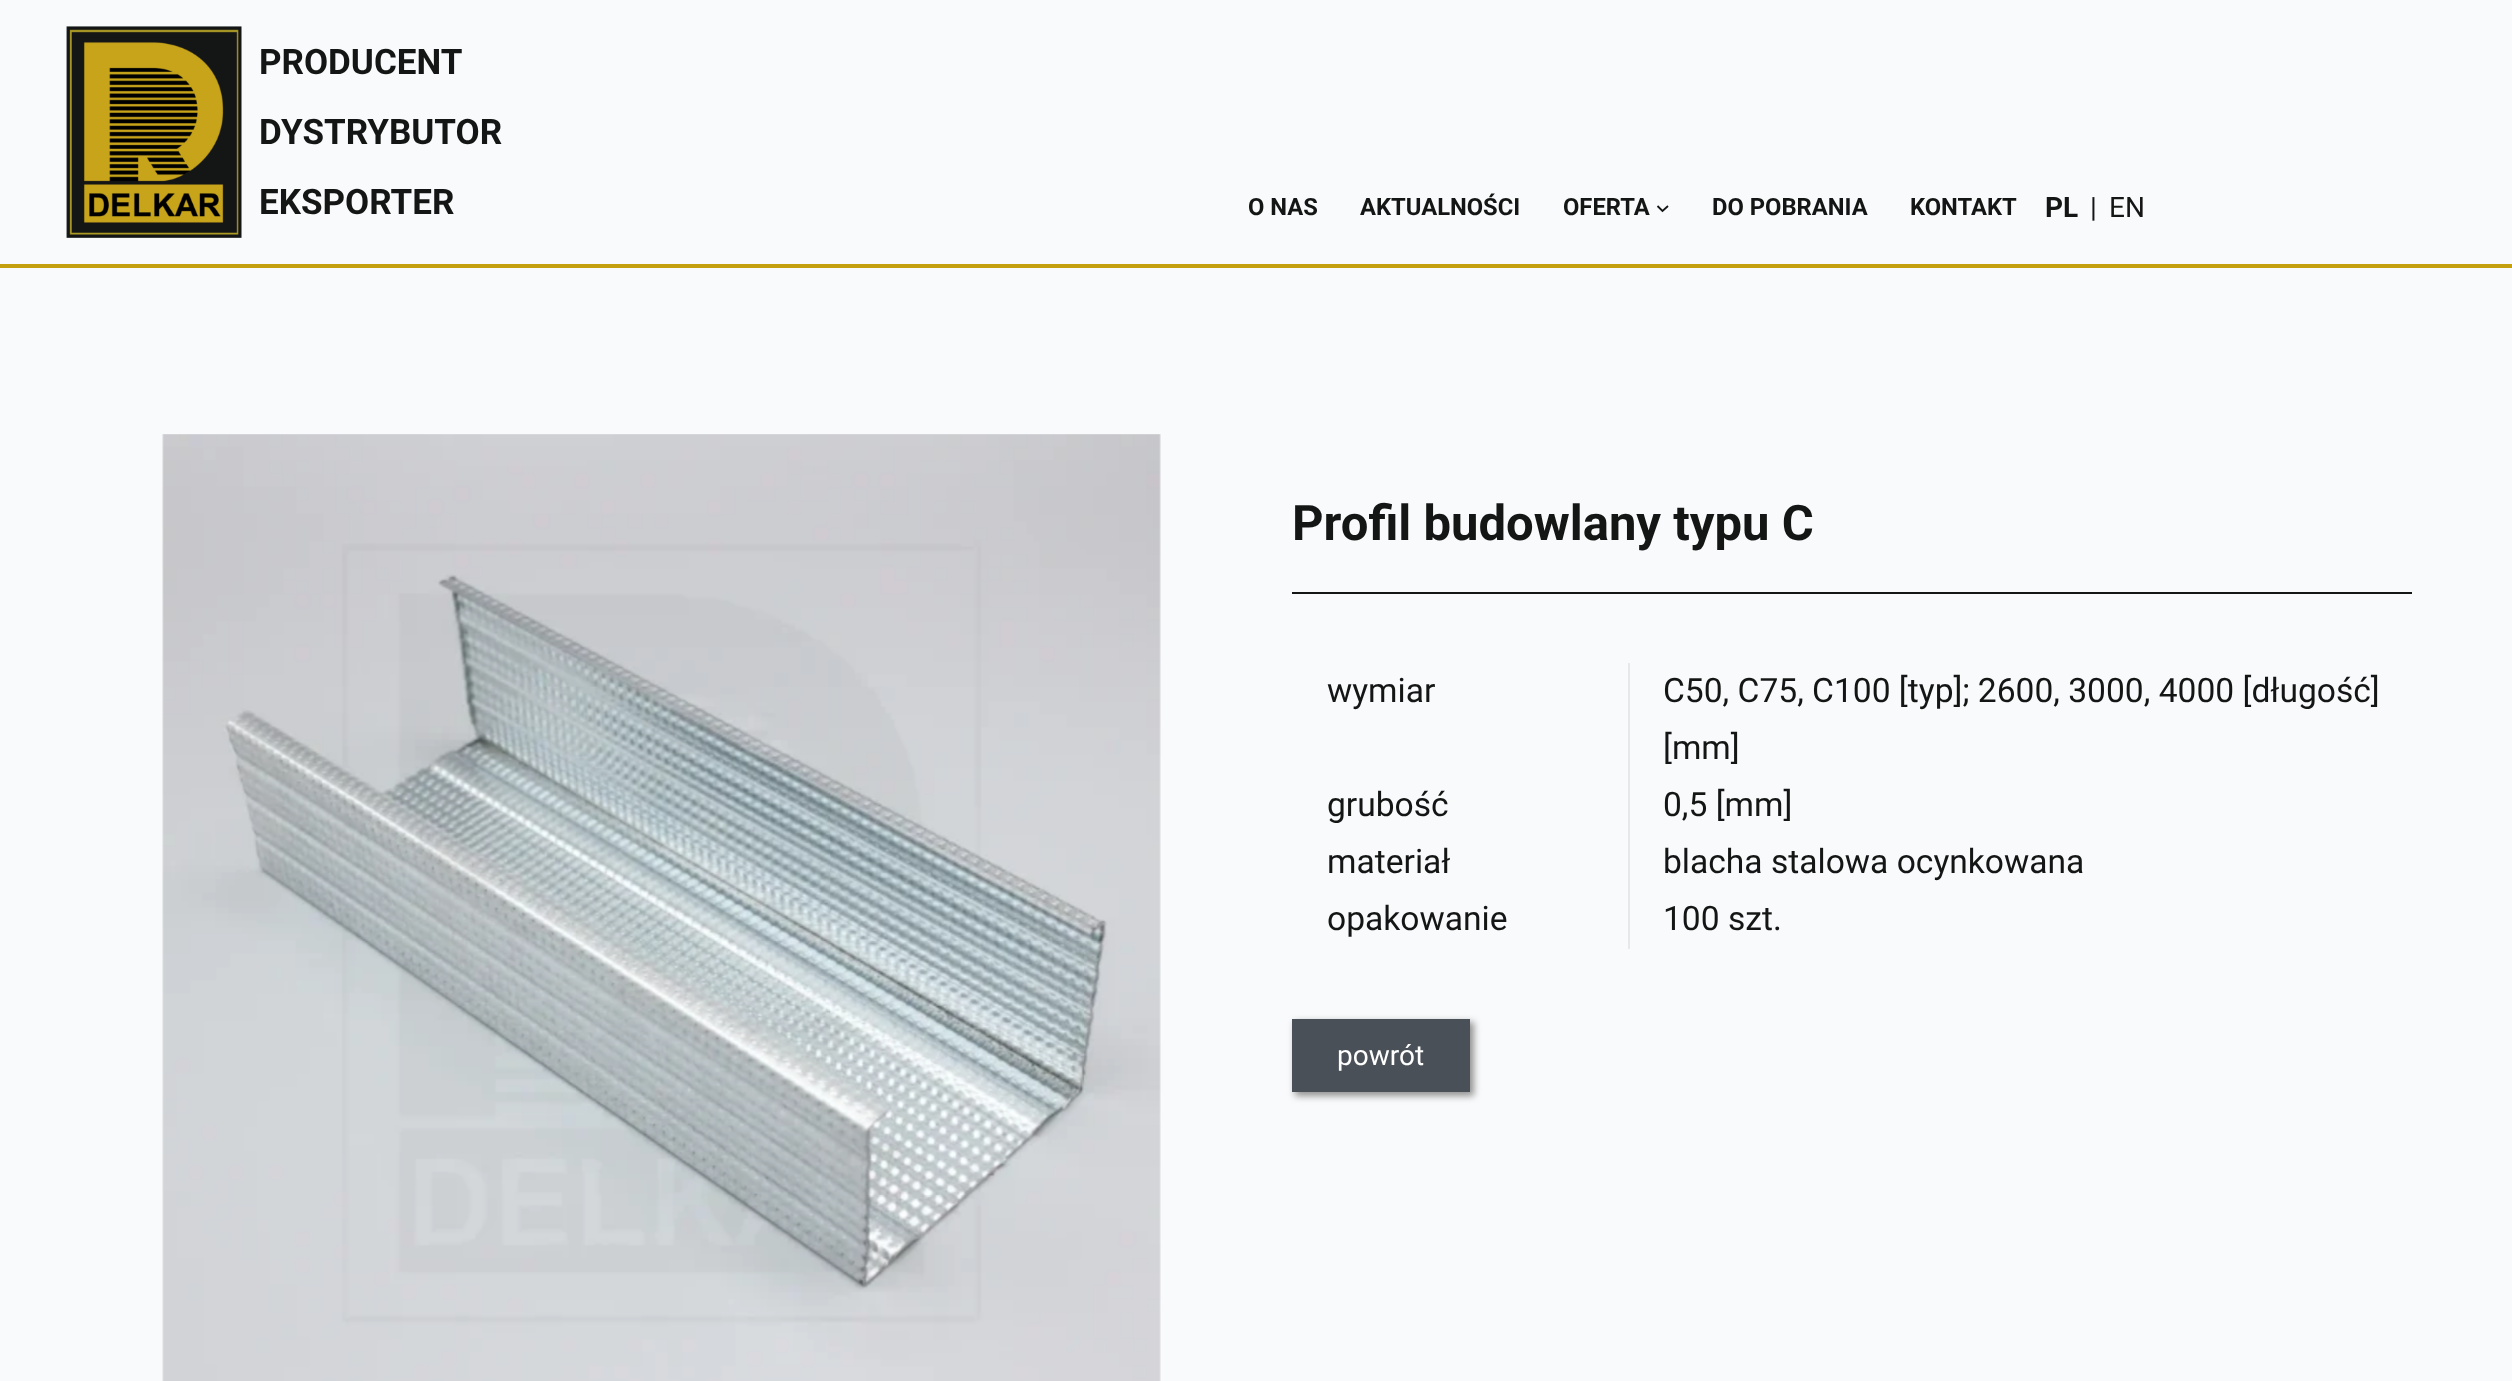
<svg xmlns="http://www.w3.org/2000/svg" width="2512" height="1381">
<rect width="100%" height="100%" fill="#f9fafb"/>
<rect y="264" width="2512" height="4" fill="#c4a00e"/>
<image x="66" y="26" width="176" height="212" href="media/1.png"/>
<text x="259" y="74" style="font-family:Roboto;font-size:35px;font-weight:bold;fill:#141515">PRODUCENT</text>
<text x="259" y="144" style="font-family:Roboto;font-size:35px;font-weight:bold;fill:#141515">DYSTRYBUTOR</text>
<text x="259" y="214" style="font-family:Roboto;font-size:35px;font-weight:bold;fill:#141515">EKSPORTER</text>
<text x="1248" y="215" style="font-family:Roboto;font-size:23.75px;font-weight:bold;fill:#141515">O NAS</text>
<text x="1360" y="215" style="font-family:Roboto;font-size:23.75px;font-weight:bold;fill:#141515">AKTUALNOŚCI</text>
<text x="1563" y="215" style="font-family:Roboto;font-size:23.75px;font-weight:bold;fill:#141515">OFERTA</text>
<path d="M1657.5 206l5 5l5.5-5" fill="none" stroke="#141515" stroke-width="1.8"/>
<text x="1712" y="215" style="font-family:Roboto;font-size:23.75px;font-weight:bold;fill:#141515">DO POBRANIA</text>
<text x="1910" y="215" style="font-family:Roboto;font-size:23.75px;font-weight:bold;fill:#141515">KONTAKT</text>
<text x="2045" y="217" style="font-family:Roboto;font-size:28px;font-weight:bold;fill:#141515">PL</text>
<text x="2090" y="217" style="font-family:Roboto;font-size:28px;fill:#141515">|</text>
<text x="2109" y="217" style="font-family:Roboto;font-size:28px;fill:#141515">EN</text>
<image x="162" y="434" width="999" height="947" href="media/2.png"/>
<rect x="1292" y="592" width="1120" height="2" fill="#141515"/>
<text x="1292" y="540" style="font-family:Roboto;font-size:49px;font-weight:bold;fill:#141515">Profil budowlany typu C</text>
<rect x="1628" y="663" width="2" height="286" fill="#e7e8e8"/>
<text x="1327" y="702" style="font-family:Roboto;font-size:33.6px;fill:#141515">wymiar</text>
<text x="1663" y="702" style="font-family:Roboto;font-size:33.6px;fill:#141515">C50, C75, C100 [typ]; 2600, 3000, 4000 [długość]</text>
<text x="1663" y="759" style="font-family:Roboto;font-size:33.6px;fill:#141515">[mm]</text>
<text x="1327" y="816" style="font-family:Roboto;font-size:33.6px;fill:#141515">grubość</text>
<text x="1663" y="816" style="font-family:Roboto;font-size:33.6px;fill:#141515">0,5 [mm]</text>
<text x="1327" y="873" style="font-family:Roboto;font-size:33.6px;fill:#141515">materiał</text>
<text x="1663" y="873" style="font-family:Roboto;font-size:33.6px;fill:#141515">blacha stalowa ocynkowana</text>
<text x="1327" y="930" style="font-family:Roboto;font-size:33.6px;fill:#141515">opakowanie</text>
<text x="1663" y="930" style="font-family:Roboto;font-size:33.6px;fill:#141515">100 szt.</text>
<rect x="1295" y="1022" width="179" height="74" fill="#696969b8" filter="blur(3.5px)"/>
<rect x="1292" y="1019" width="178" height="73" fill="#495057"/>
<text x="1337" y="1065" style="font-family:Roboto;font-size:28px;fill:#fff">powrót</text>
</svg>
